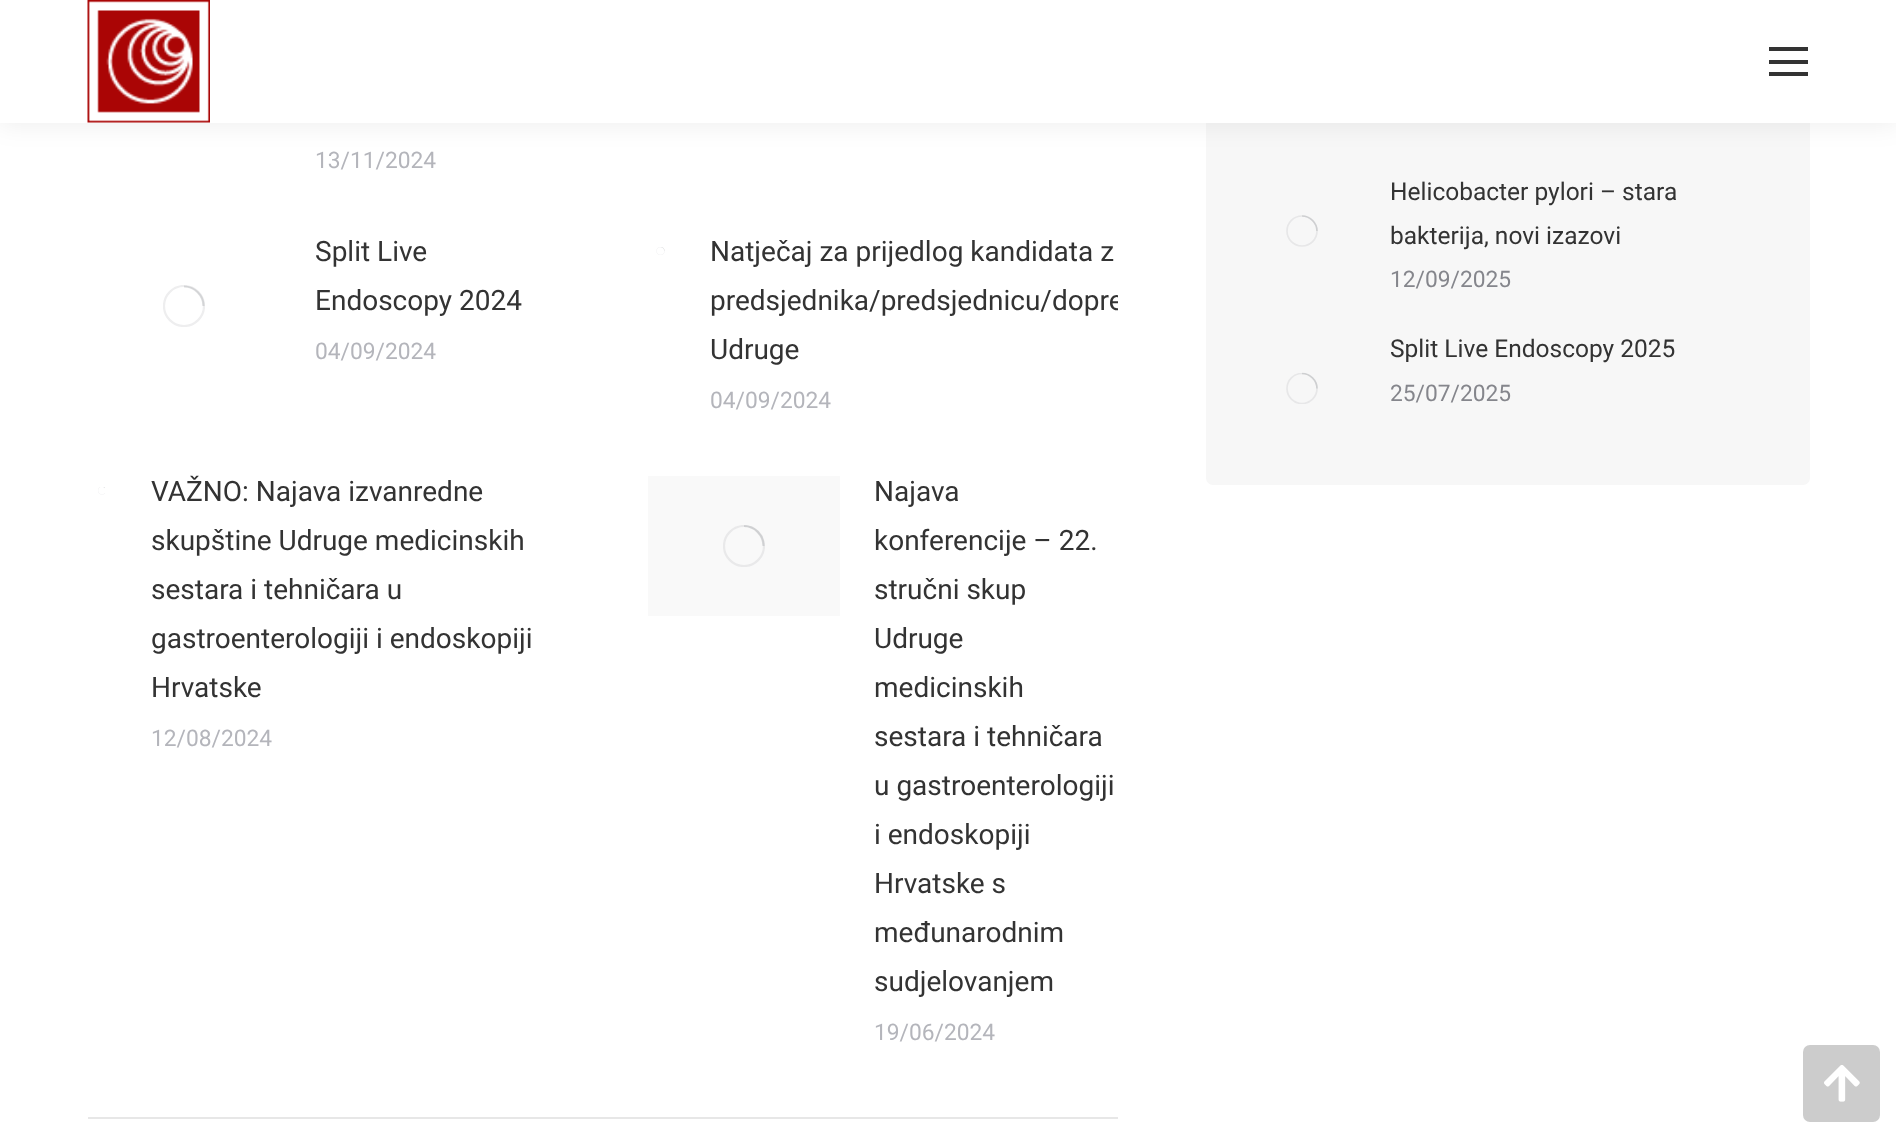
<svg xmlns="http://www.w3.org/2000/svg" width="1896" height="1139">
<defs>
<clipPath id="clip1"><rect x="163" y="285" width="42" height="42"/></clipPath>
<clipPath id="clip2"><rect x="648" y="228" width="470" height="196"/></clipPath>
<clipPath id="clip3"><rect x="723" y="525" width="42" height="42"/></clipPath>
<clipPath id="clip4"><rect x="1286" y="373" width="32" height="31"/></clipPath>
</defs>
<rect width="100%" height="100%" fill="#fff"/>
<rect x="1206" y="-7" width="604" height="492" rx="7" fill="#f7f7f7"/>
<rect x="-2" y="-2" width="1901" height="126" fill="#00000012" filter="blur(13px)"/>
<rect width="1896" height="123" fill="#fff"/>
<image x="87" y="0" width="123" height="123" href="media/1.png"/>
<rect x="1769" y="60" width="39" height="4" fill="#333"/>
<rect x="1769" y="47" width="39" height="4" fill="#333"/>
<rect x="1769" y="72" width="39" height="4" fill="#333"/>
<rect x="88" y="1117" width="1030" height="2" fill="#e7e7e7"/>
<text x="315" y="168" style="font-family:Roboto;font-size:22.75px;fill:#b4b5bb">13/11/2024</text>
<g clip-path="url(#clip1)">
<circle cx="184" cy="306" r="20" fill="none" stroke="#eeeeef" stroke-width="2.2"/>
</g>
<path d="M203.5 306c0-10.5-9-19.5-19.5-19.5" fill="none" stroke="#85868c40" stroke-width="2.2"/>
<text x="315" y="261" style="font-family:Roboto;font-size:28px;fill:#333">Split Live</text>
<text x="315" y="310" style="font-family:Roboto;font-size:28px;fill:#333">Endoscopy 2024</text>
<text x="315" y="359" style="font-family:Roboto;font-size:22.75px;fill:#b4b5bb">04/09/2024</text>
<image x="656" y="247" width="9" height="8" href="media/2.png"/>
<text x="710" y="261" style="font-family:Roboto;font-size:28px;fill:#333">Natječaj za prijedlog kandidata z</text>
<g clip-path="url(#clip2)">
<text x="710" y="310" style="font-family:Roboto;font-size:28px;fill:#333">predsjednika/predsjednicu/dopre</text>
</g>
<text x="710" y="359" style="font-family:Roboto;font-size:28px;fill:#333">Udruge</text>
<text x="710" y="408" style="font-family:Roboto;font-size:22.75px;fill:#b4b5bb">04/09/2024</text>
<image x="98" y="487" width="7" height="8" href="media/3.png"/>
<text x="151" y="501" style="font-family:Roboto;font-size:28px;fill:#333">VAŽNO: Najava izvanredne</text>
<text x="151" y="550" style="font-family:Roboto;font-size:28px;fill:#333">skupštine Udruge medicinskih</text>
<text x="151" y="599" style="font-family:Roboto;font-size:28px;fill:#333">sestara i tehničara u</text>
<text x="151" y="648" style="font-family:Roboto;font-size:28px;fill:#333">gastroenterologiji i endoskopiji</text>
<text x="151" y="697" style="font-family:Roboto;font-size:28px;fill:#333">Hrvatske</text>
<text x="151" y="746" style="font-family:Roboto;font-size:22.75px;fill:#b4b5bb">12/08/2024</text>
<rect x="648" y="476" width="192" height="140" fill="#f9f9f9"/>
<g clip-path="url(#clip3)">
<circle cx="744" cy="546" r="20" fill="none" stroke="#e9e9ea" stroke-width="2.2"/>
</g>
<path d="M763.5 546c0-11-9-20-19.5-20" fill="none" stroke="#85868c40" stroke-width="2.2"/>
<text x="874" y="501" style="font-family:Roboto;font-size:28px;fill:#333">Najava</text>
<text x="874" y="550" style="font-family:Roboto;font-size:28px;fill:#333">konferencije – 22.</text>
<text x="874" y="599" style="font-family:Roboto;font-size:28px;fill:#333">stručni skup</text>
<text x="874" y="648" style="font-family:Roboto;font-size:28px;fill:#333">Udruge</text>
<text x="874" y="697" style="font-family:Roboto;font-size:28px;fill:#333">medicinskih</text>
<text x="874" y="746" style="font-family:Roboto;font-size:28px;fill:#333">sestara i tehničara</text>
<text x="874" y="795" style="font-family:Roboto;font-size:28px;fill:#333">u gastroenterologiji</text>
<text x="874" y="844" style="font-family:Roboto;font-size:28px;fill:#333">i endoskopiji</text>
<text x="874" y="893" style="font-family:Roboto;font-size:28px;fill:#333">Hrvatske s</text>
<text x="874" y="942" style="font-family:Roboto;font-size:28px;fill:#333">međunarodnim</text>
<text x="874" y="991" style="font-family:Roboto;font-size:28px;fill:#333">sudjelovanjem</text>
<text x="874" y="1040" style="font-family:Roboto;font-size:22.75px;fill:#b4b5bb">19/06/2024</text>
<circle cx="1302" cy="231" r="15" fill="none" stroke="#e7e7e8" stroke-width="1.7"/>
<path d="M1317 231c0-8-7-15-15-15" fill="none" stroke="#85868c40" stroke-width="1.7"/>
<text x="1390" y="200" style="font-family:Roboto;font-size:24.5px;fill:#333">Helicobacter pylori – stara</text>
<text x="1390" y="244" style="font-family:Roboto;font-size:24.5px;fill:#333">bakterija, novi izazovi</text>
<text x="1390" y="287" style="font-family:Roboto;font-size:22.75px;fill:#85868c">12/09/2025</text>
<g clip-path="url(#clip4)">
<circle cx="1302" cy="388.5" r="15" fill="none" stroke="#e7e7e8" stroke-width="1.7"/>
</g>
<path d="M1317 388.5c0-8-7-15-15-15" fill="none" stroke="#85868c40" stroke-width="1.7"/>
<text x="1390" y="357" style="font-family:Roboto;font-size:24.5px;fill:#333">Split Live Endoscopy 2025</text>
<text x="1390" y="401" style="font-family:Roboto;font-size:22.75px;fill:#85868c">25/07/2025</text>
<rect x="1803" y="1045" width="77" height="77" rx="7" fill="#ccc"/>
<image x="1824" y="1065" width="36" height="37" href="media/4.png"/>
</svg>
